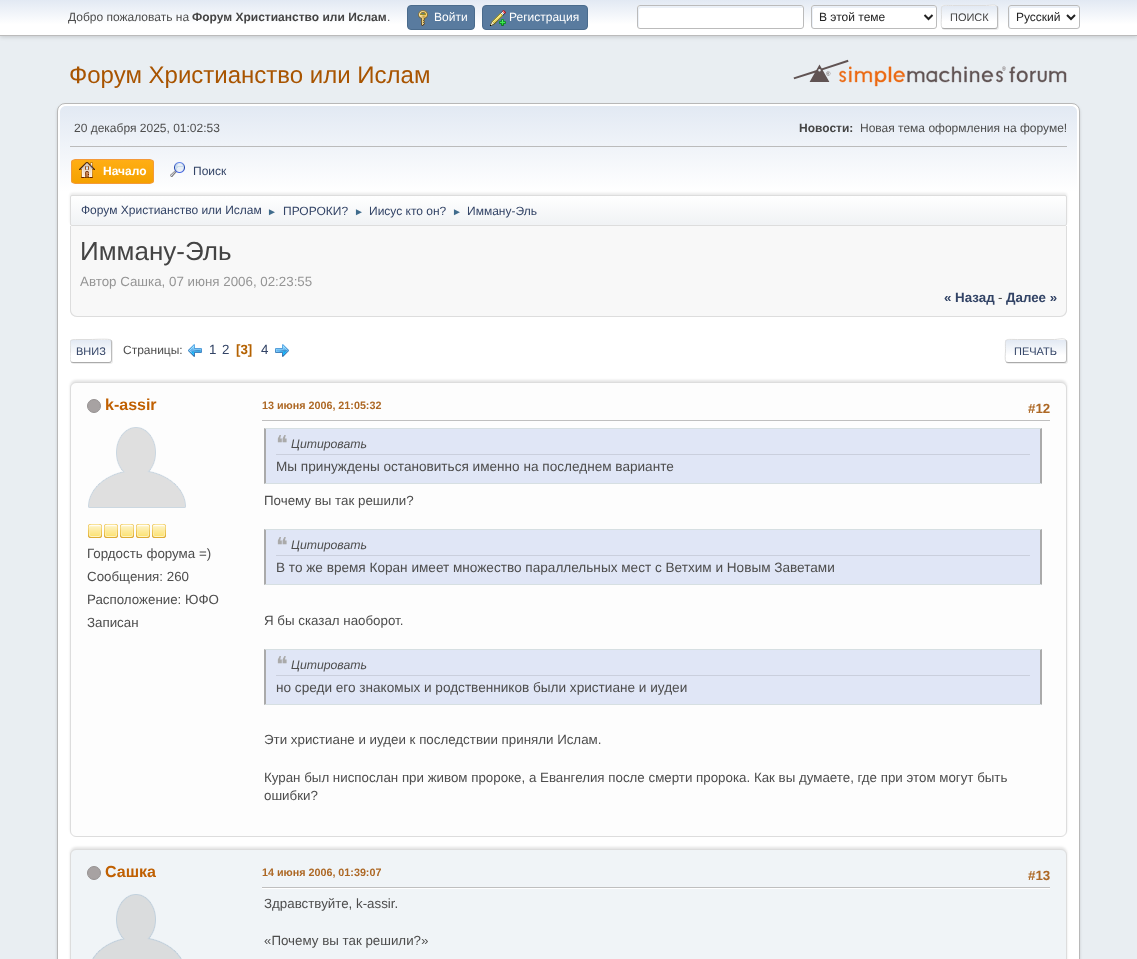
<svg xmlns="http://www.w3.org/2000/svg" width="1137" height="959">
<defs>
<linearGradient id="g1" gradientUnits="userSpaceOnUse" x1="569" y1="0" x2="569" y2="35"><stop offset="0" stop-color="#e2e9f3"/><stop offset="0.7" stop-color="#fff"/></linearGradient>
<clipPath id="clip1"><rect x="941" y="5" width="57" height="24" rx="3"/></clipPath>
<linearGradient id="g2" gradientUnits="userSpaceOnUse" x1="970" y1="-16" x2="970" y2="6"><stop offset="0" stop-color="#e2e9f3"/><stop offset="0.7" stop-color="#fff"/></linearGradient>
<linearGradient id="g3" gradientUnits="userSpaceOnUse" x1="970" y1="6" x2="970" y2="28"><stop offset="0" stop-color="#e2e9f3"/><stop offset="0.7" stop-color="#fff"/></linearGradient>
<linearGradient id="g4" gradientUnits="userSpaceOnUse" x1="569" y1="106" x2="569" y2="228"><stop offset="0" stop-color="#e2e9f3"/><stop offset="0.7" stop-color="#fff"/></linearGradient>
<clipPath id="clip2"><rect x="71" y="159" width="83" height="25" rx="4"/></clipPath>
<linearGradient id="g5" gradientUnits="userSpaceOnUse" x1="113" y1="160" x2="113" y2="183"><stop offset="0" stop-color="#ffae14"/><stop offset="1" stop-color="#f5a100"/></linearGradient>
<clipPath id="clip3"><rect x="70" y="195" width="997" height="31" rx="2"/></clipPath>
<linearGradient id="g6" gradientUnits="userSpaceOnUse" x1="569" y1="196" x2="569" y2="225"><stop offset="0" stop-color="#fff"/><stop offset="0.95" stop-color="#f1f3f5"/></linearGradient>
<clipPath id="clip4"><rect x="70" y="339" width="42" height="24" rx="3"/></clipPath>
<linearGradient id="g7" gradientUnits="userSpaceOnUse" x1="91" y1="340" x2="91" y2="362"><stop offset="0" stop-color="#e2e9f3"/><stop offset="0.7" stop-color="#fff"/></linearGradient>
<clipPath id="clip5"><rect x="70" y="332" width="997" height="38"/></clipPath>
<clipPath id="clip6"><path d="M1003 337h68v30h-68zm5 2h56c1.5 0 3 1.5 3 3v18c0 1.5-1.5 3-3 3h-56c-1.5 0-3-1.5-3-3v-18c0-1.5 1.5-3 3-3z" clip-rule="evenodd"/></clipPath>
<clipPath id="clip7"><rect x="1005" y="339" width="62" height="24" rx="3"/></clipPath>
<linearGradient id="g8" gradientUnits="userSpaceOnUse" x1="1036" y1="340" x2="1036" y2="362"><stop offset="0" stop-color="#e2e9f3"/><stop offset="0.7" stop-color="#fff"/></linearGradient>
</defs>
<rect width="100%" height="100%" fill="#e9eef2"/>
<rect y="1" width="1137" height="36" fill="#00000029" filter="blur(2px)"/>
<rect width="1137" height="35" fill="url(#g1)"/>
<rect y="35" width="1137" height="1" fill="#bbb"/>
<text x="68" y="21" style="font-family:Liberation Sans;font-size:12px;fill:#4d4d4d">Добро пожаловать на</text>
<text x="192" y="21" style="font-family:Liberation Sans;font-size:12px;font-weight:bold;fill:#444">Форум Христианство или Ислам</text>
<text x="387" y="21" style="font-family:Liberation Sans;font-size:12px;fill:#4d4d4d">.</text>
<rect x="407.5" y="5.5" width="67" height="24" rx="3.5" fill="#597b9f" stroke="#4a6b8c"/>
<image x="418" y="10" width="10" height="16" href="media/1.png"/>
<text x="434" y="21" style="font-family:Liberation Sans;font-size:12px;fill:#fff">Войти</text>
<rect x="482.5" y="5.5" width="105" height="24" rx="3.5" fill="#597b9f" stroke="#4a6b8c"/>
<image x="490" y="10" width="16" height="16" href="media/2.png"/>
<text x="509" y="21" style="font-family:Liberation Sans;font-size:12px;fill:#fff">Регистрация</text>
<rect x="637" y="5" width="167" height="24" rx="3" fill="#fff"/>
<path d="M641 8h162v-1l-2-1h-161c-1 0-2 1-2 2c0 3-1 19 1 20v-18c0-1 1-2 2-2z" fill="#ecf1f8"/>
<rect x="637.5" y="5.5" width="166" height="23" rx="2.5" fill="none" stroke="#bbb"/>
<rect x="811" y="5" width="126" height="24" rx="3" fill="#fff"/>
<path d="M815 8h121c0-1-1-2-2-2h-120c-1 0-2 1-2 2v18c0 1 0 1 1 2v-18c0-1 1-2 2-2z" fill="#ecf1f8"/>
<rect x="811.5" y="5.5" width="125" height="23" rx="2.5" fill="none" stroke="#bbb"/>
<path d="M924.5 15l4 4l4-4" fill="none" stroke="#222" stroke-width="2"/>
<text x="819" y="21" style="font-family:Liberation Sans;font-size:12px;fill:#222">В этой теме</text>
<rect x="942" y="6" width="57" height="24" rx="3" fill="#dddddd91" filter="blur(0.5px)"/>
<g clip-path="url(#clip1)">
<rect x="941" y="5" width="57" height="1" fill="url(#g2)"/>
<rect x="941" y="6" width="57" height="22" fill="url(#g3)"/>
</g>
<path d="M997 6c0 .5 .5 1.5 .5 2v18c0 .5-.5 1.5-.5 2" fill="none" stroke="#bbb"/>
<path d="M997 28l-2 .5h-51l-2-.5" fill="none" stroke="#aaa"/>
<path d="M942 28c-1.5-2-.5-9-.5-11c0-13-2-11.5 11-11.5h34c3.5 0 8-1.5 10.5 .5" fill="none" stroke="#ddd"/>
<text x="950" y="21" style="font-family:Liberation Sans;font-size:11px;fill:#444">ПОИСК</text>
<rect x="1008" y="5" width="72" height="24" rx="3" fill="#fff"/>
<path d="M1012 8h67c0-4-8-2-13-2h-44c-13 0-13-3-13 8c0 2-1 12 1 14v-18c0-1 1-2 2-2z" fill="#ecf1f8"/>
<rect x="1008.5" y="5.5" width="71" height="23" rx="2.5" fill="none" stroke="#bbb"/>
<path d="M1067 15l4 4l4-4" fill="none" stroke="#222" stroke-width="2"/>
<text x="1016" y="21" style="font-family:Liberation Sans;font-size:12px;fill:#222">Русский</text>
<text x="69" y="83" style="font-family:Liberation Sans;font-size:24px;fill:#a85400">Форум Христианство или Ислам</text>
<image x="793" y="59" width="274" height="28" href="media/3.png"/>
<rect x="57" y="105" width="1023" height="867" rx="8" fill="#00000024" filter="blur(1.5px)"/>
<rect x="57.5" y="103.5" width="1022" height="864" rx="7.5" fill="#fff" stroke="#b8b8b8"/>
<path d="M66 106h1005c3.5 0 6 2.5 6 6v116h-1017v-116c0-3.5 2.5-6 6-6z" fill="url(#g4)"/>
<rect x="70" y="146" width="997" height="1" fill="#bbb"/>
<text x="74" y="132" style="font-family:Liberation Sans;font-size:12px;fill:#4d4d4d">20 декабря 2025, 01:02:53</text>
<text x="799" y="132" style="font-family:Liberation Sans;font-size:12px;font-weight:bold;fill:#444">Новости:</text>
<text x="860" y="132" style="font-family:Liberation Sans;font-size:12px;fill:#4d4d4d">Новая тема оформления на форуме!</text>
<g clip-path="url(#clip2)">
<rect x="71" y="160" width="83" height="23" fill="url(#g5)"/>
</g>
<rect x="71.5" y="159.5" width="82" height="24" rx="3.5" fill="none" stroke="#f49a3a"/>
<image x="79" y="162" width="16" height="16" href="media/4.png"/>
<text x="103" y="175" style="font-family:Liberation Sans;font-size:12px;font-weight:bold;fill:#fff">Начало</text>
<image x="170" y="162" width="15" height="15" href="media/5.png"/>
<text x="193" y="175" style="font-family:Liberation Sans;font-size:12px;fill:#346">Поиск</text>
<rect x="70" y="193" width="997" height="31" rx="2" fill="#00000014" filter="blur(1px)"/>
<g clip-path="url(#clip3)">
<rect x="70" y="196" width="997" height="29" fill="url(#g6)"/>
</g>
<rect x="70.5" y="195.5" width="996" height="30" rx="1.5" fill="none" stroke="#ddd"/>
<text x="81" y="214" style="font-family:Liberation Sans;font-size:12px;fill:#346">Форум Христианство или Ислам</text>
<text x="267" y="215" style="font-family:Liberation Sans;font-size:10px;fill:#3f6b8c">►</text>
<text x="283" y="215" style="font-family:Liberation Sans;font-size:12px;fill:#346">ПРОРОКИ?</text>
<text x="354" y="215" style="font-family:Liberation Sans;font-size:10px;fill:#3f6b8c">►</text>
<text x="369" y="215" style="font-family:Liberation Sans;font-size:12px;fill:#346">Иисус кто он?</text>
<text x="452" y="215" style="font-family:Liberation Sans;font-size:10px;fill:#3f6b8c">►</text>
<text x="467" y="215" style="font-family:Liberation Sans;font-size:12px;fill:#346">Имману-Эль</text>
<path d="M70 226h997v84c0 4-3 7-7 7h-983c-4 0-7-3-7-7z" fill="#f8f8f8"/>
<path d="M70 226h997v84c0 4-3 7-7 7h-983c-4 0-7-3-7-7zm1 0h995v84c0 3-3 6-6 6h-983c-3 0-6-3-6-6z" fill="#ddd" fill-rule="evenodd"/>
<text x="80" y="260" style="font-family:Liberation Sans;font-size:26px;fill:#444">Имману-Эль</text>
<text x="80" y="286" style="font-family:Liberation Sans;font-size:13.33px;fill:#959595">Автор Сашка, 07 июня 2006, 02:23:55</text>
<text x="944" y="302" style="font-family:Liberation Sans;font-size:13.33px;font-weight:bold;fill:#346">« Назад</text>
<text x="998" y="302" style="font-family:Liberation Sans;font-size:13.33px;fill:#4d4d4d">-</text>
<text x="1006" y="302" style="font-family:Liberation Sans;font-size:13.33px;font-weight:bold;fill:#346">Далее »</text>
<rect x="71" y="340" width="42" height="24" rx="3" fill="#dddddd91" filter="blur(0.5px)"/>
<rect x="70" y="339" width="42" height="24" rx="3" fill="#fff"/>
<g clip-path="url(#clip4)">
<rect x="70" y="340" width="42" height="22" fill="url(#g7)"/>
</g>
<path d="M111 340c0 .5 .5 1.5 .5 2v18c0 .5-.5 1.5-.5 2" fill="none" stroke="#bbb"/>
<path d="M111 362l-2 .5h-36l-2-.5" fill="none" stroke="#aaa"/>
<g clip-path="url(#clip5)">
<path d="M71 362c-1.5-2-.5-9-.5-11c0-11.5-2.5-11.5 8.5-11.5h12c3 0 18-1 20 .5" fill="none" stroke="#ddd"/>
</g>
<text x="76" y="355" style="font-family:Liberation Sans;font-size:11px;fill:#346">ВНИЗ</text>
<text x="123" y="354" style="font-family:Liberation Sans;font-size:12px;fill:#4d4d4d">Страницы:</text>
<image x="188" y="344" width="14" height="13" href="media/6.png"/>
<text x="209" y="354" style="font-family:Liberation Sans;font-size:13.33px;fill:#346">1</text>
<text x="222" y="354" style="font-family:Liberation Sans;font-size:13.33px;fill:#346">2</text>
<text x="236" y="354" style="font-family:Liberation Sans;font-size:13.33px;font-weight:bold;fill:#b46100">[3]</text>
<text x="261" y="354" style="font-family:Liberation Sans;font-size:13.33px;fill:#346">4</text>
<image x="275" y="344" width="14" height="13" href="media/7.png"/>
<g clip-path="url(#clip6)">
<rect x="1006" y="340" width="62" height="24" rx="3" fill="#dddddd91" filter="blur(0.5px)"/>
</g>
<rect x="1005" y="339" width="62" height="24" rx="3" fill="#fff"/>
<g clip-path="url(#clip7)">
<rect x="1005" y="340" width="62" height="22" fill="url(#g8)"/>
</g>
<path d="M1066 340c0 .5 .5 1.5 .5 2v18c0 .5-.5 1.5-.5 2" fill="none" stroke="#bbb"/>
<path d="M1066 362l-2 .5h-56l-2-.5" fill="none" stroke="#aaa"/>
<path d="M1006 362c-1.5-2-.5-9-.5-11c0-13.5-2-11.5 12-11.5h37c4 0 8.5-2 11.5 .5" fill="none" stroke="#ddd"/>
<text x="1014" y="355" style="font-family:Liberation Sans;font-size:11px;fill:#346">ПЕЧАТЬ</text>
<rect x="70" y="380" width="997" height="455" rx="6" fill="#0000001a" filter="blur(1px)"/>
<rect x="70.5" y="382.5" width="996" height="454" rx="5.5" fill="#fdfdfd" stroke="#ddd"/>
<circle cx="94" cy="406" r="6.5" fill="#a7a2a2" stroke="#969292"/>
<text x="105" y="410" style="font-family:Liberation Sans;font-size:16px;font-weight:bold;fill:#c06002">k-assir</text>
<image x="88" y="427" width="98" height="81" href="media/8.png"/>
<image x="88" y="524" width="14" height="14" href="media/9.png"/>
<image x="104" y="524" width="14" height="14" href="media/9.png"/>
<image x="120" y="524" width="14" height="14" href="media/9.png"/>
<image x="136" y="524" width="14" height="14" href="media/9.png"/>
<image x="152" y="524" width="14" height="14" href="media/9.png"/>
<text x="87" y="558" style="font-family:Liberation Sans;font-size:13.33px;fill:#4d4d4d">Гордость форума =)</text>
<text x="87" y="581" style="font-family:Liberation Sans;font-size:13.33px;fill:#4d4d4d">Сообщения: 260</text>
<text x="87" y="604" style="font-family:Liberation Sans;font-size:13.33px;fill:#4d4d4d">Расположение: ЮФО</text>
<text x="87" y="627" style="font-family:Liberation Sans;font-size:13.33px;fill:#4d4d4d">Записан</text>
<text x="262" y="409" style="font-family:Liberation Sans;font-size:10.75px;font-weight:bold;fill:#ad6825">13 июня 2006, 21:05:32</text>
<text x="1028" y="413" style="font-family:Liberation Sans;font-size:13.33px;font-weight:bold;fill:#ad6825">#12</text>
<rect x="262" y="420" width="788" height="1" fill="#bfbfbf"/>
<rect x="266" y="429" width="774" height="54" fill="#e0e6f6"/>
<path d="M264 428h778l-2 1h-774z" fill="#d6dfe2"/>
<path d="M1042 428v56l-2-1v-54z" fill="#aaa"/>
<path d="M1042 484h-778l2-1h774z" fill="#d6dfe2"/>
<path d="M264 484v-56l2 1v54z" fill="#aaa"/>
<rect x="276" y="454" width="754" height="1" fill="#cacfdd"/>
<text x="276" y="451" style="font-family:DejaVu Sans;font-size:22px;fill:#aaa">❝</text>
<text x="291" y="448" style="font-family:Liberation Sans;font-size:12.25px;font-style:italic;fill:#4d4d4d">Цитировать</text>
<text x="276" y="471" style="font-family:Liberation Sans;font-size:13.6px;fill:#4d4d4d">Мы принуждены остановиться именно на последнем варианте</text>
<text x="264" y="505" style="font-family:Liberation Sans;font-size:13.33px;fill:#4d4d4d">Почему вы так решили?</text>
<rect x="266" y="530" width="774" height="54" fill="#e0e6f6"/>
<path d="M264 529h778l-2 1h-774z" fill="#d6dfe2"/>
<path d="M1042 529v56l-2-1v-54z" fill="#aaa"/>
<path d="M1042 585h-778l2-1h774z" fill="#d6dfe2"/>
<path d="M264 585v-56l2 1v54z" fill="#aaa"/>
<rect x="276" y="555" width="754" height="1" fill="#cacfdd"/>
<text x="276" y="553" style="font-family:DejaVu Sans;font-size:22px;fill:#aaa">❝</text>
<text x="291" y="549" style="font-family:Liberation Sans;font-size:12.25px;font-style:italic;fill:#4d4d4d">Цитировать</text>
<text x="276" y="572" style="font-family:Liberation Sans;font-size:13.6px;fill:#4d4d4d">В то же время Коран имеет множество параллельных мест с Ветхим и Новым Заветами</text>
<text x="264" y="625" style="font-family:Liberation Sans;font-size:13.33px;fill:#4d4d4d">Я бы сказал наоборот.</text>
<rect x="266" y="650" width="774" height="54" fill="#e0e6f6"/>
<path d="M264 649h778l-2 1h-774z" fill="#d6dfe2"/>
<path d="M1042 649v56l-2-1v-54z" fill="#aaa"/>
<path d="M1042 705h-778l2-1h774z" fill="#d6dfe2"/>
<path d="M264 705v-56l2 1v54z" fill="#aaa"/>
<rect x="276" y="675" width="754" height="1" fill="#cacfdd"/>
<text x="276" y="672" style="font-family:DejaVu Sans;font-size:22px;fill:#aaa">❝</text>
<text x="291" y="669" style="font-family:Liberation Sans;font-size:12.25px;font-style:italic;fill:#4d4d4d">Цитировать</text>
<text x="276" y="692" style="font-family:Liberation Sans;font-size:13.6px;fill:#4d4d4d">но среди его знакомых и родственников были христиане и иудеи</text>
<text x="264" y="744" style="font-family:Liberation Sans;font-size:13.33px;fill:#4d4d4d">Эти христиане и иудеи к последствии приняли Ислам.</text>
<text x="264" y="782" style="font-family:Liberation Sans;font-size:13.33px;fill:#4d4d4d">Куран был ниспослан при живом пророке, а Евангелия после смерти пророка. Как вы думаете, где при этом могут быть</text>
<text x="264" y="800" style="font-family:Liberation Sans;font-size:13.33px;fill:#4d4d4d">ошибки?</text>
<rect x="70" y="847" width="997" height="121" rx="6" fill="#0000001a" filter="blur(1px)"/>
<rect x="70.5" y="849.5" width="996" height="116" rx="5.5" fill="#f0f4f7" stroke="#ddd"/>
<circle cx="94" cy="873" r="6.5" fill="#a7a2a2" stroke="#969292"/>
<text x="105" y="877" style="font-family:Liberation Sans;font-size:16px;font-weight:bold;fill:#c06002">Сашка</text>
<image x="92" y="894" width="90" height="65" href="media/10.png"/>
<text x="262" y="876" style="font-family:Liberation Sans;font-size:10.75px;font-weight:bold;fill:#ad6825">14 июня 2006, 01:39:07</text>
<text x="1028" y="880" style="font-family:Liberation Sans;font-size:13.33px;font-weight:bold;fill:#ad6825">#13</text>
<rect x="262" y="888" width="788" height="1" fill="#fff"/>
<rect x="262" y="887" width="788" height="1" fill="#bfbfbf"/>
<text x="264" y="908" style="font-family:Liberation Sans;font-size:13.33px;fill:#4d4d4d">Здравствуйте, k-assir.</text>
<text x="264" y="945" style="font-family:Liberation Sans;font-size:13.33px;fill:#4d4d4d">«Почему вы так решили?»</text>
</svg>
